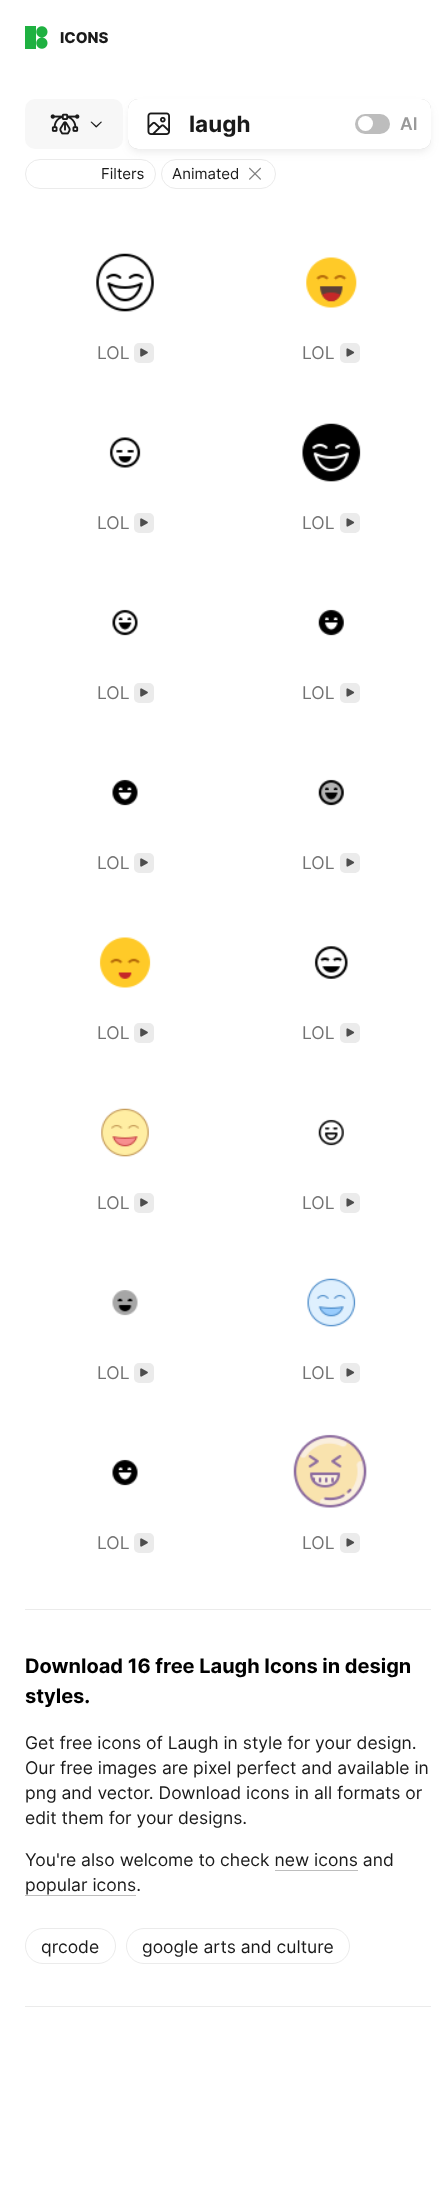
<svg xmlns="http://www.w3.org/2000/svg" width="443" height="2186">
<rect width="100%" height="100%" fill="#fff"/>
<image x="25" y="26" width="23" height="23" href="media/1.png"/>
<text x="60" y="43" style="font-family:Inter;font-size:15px;font-weight:800;fill:#1a1a1a">ICONS</text>
<rect x="25.5" y="159.5" width="130" height="29" rx="14.5" fill="none" stroke="#ebebeb"/>
<rect x="161.5" y="159.5" width="114" height="29" rx="14.5" fill="none" stroke="#ebebeb"/>
<rect x="130" y="106" width="299" height="45" rx="8" fill="#60606026" filter="blur(5px)"/>
<rect x="25" y="99" width="98" height="50" rx="10" fill="#f7f7f7"/>
<image x="50" y="113" width="30" height="22" href="media/2.png"/>
<path d="M91.5 121.5l5.5 5l-1 1l-5.5-5.5z" fill="#1a1a1a"/>
<path d="M95.5 126.5l5.5-5l1 .5l-5.5 5.5z" fill="#1a1a1a"/>
<rect x="128" y="99" width="303" height="50" rx="10" fill="#6060604f" filter="blur(0.5px)"/>
<rect x="128" y="99" width="303" height="50" rx="10" fill="#fff"/>
<image x="147" y="112" width="23" height="23" href="media/3.png"/>
<text x="189" y="132" style="font-family:Inter;font-size:22.5px;font-weight:bold;fill:#1a1a1a">laugh</text>
<rect x="355" y="114" width="35" height="20" rx="10" fill="#bdbdbd"/>
<circle cx="365.5" cy="123.5" r="7.5" fill="#fff"/>
<text x="400" y="130" style="font-family:Inter;font-size:17.5px;font-weight:600;fill:#999">AI</text>
<text x="101" y="179" style="font-family:Inter;font-size:15px;fill:#1a1a1a">Filters</text>
<text x="172" y="179" style="font-family:Inter;font-size:15px;fill:#1a1a1a">Animated</text>
<image x="249" y="167" width="12" height="13" href="media/4.png"/>
<image x="96" y="253" width="58" height="59" href="media/5.png"/>
<text x="97" y="359" style="font-family:Inter;font-size:17.5px;fill:#737373">LOL</text>
<rect x="134" y="343" width="20" height="20" rx="5" fill="#ebebeb"/>
<image x="140" y="348" width="8" height="9" href="media/6.png"/>
<image x="306" y="257" width="51" height="51" href="media/7.png"/>
<text x="302" y="359" style="font-family:Inter;font-size:17.5px;fill:#737373">LOL</text>
<rect x="340" y="343" width="20" height="20" rx="5" fill="#ebebeb"/>
<image x="346" y="348" width="9" height="9" href="media/8.png"/>
<image x="109" y="437" width="32" height="31" href="media/9.png"/>
<text x="97" y="529" style="font-family:Inter;font-size:17.5px;fill:#737373">LOL</text>
<rect x="134" y="513" width="20" height="20" rx="5" fill="#ebebeb"/>
<image x="140" y="518" width="8" height="9" href="media/6.png"/>
<image x="302" y="423" width="59" height="59" href="media/10.png"/>
<text x="302" y="529" style="font-family:Inter;font-size:17.5px;fill:#737373">LOL</text>
<rect x="340" y="513" width="20" height="20" rx="5" fill="#ebebeb"/>
<image x="346" y="518" width="9" height="9" href="media/8.png"/>
<image x="112" y="609" width="26" height="27" href="media/11.png"/>
<text x="97" y="699" style="font-family:Inter;font-size:17.5px;fill:#737373">LOL</text>
<rect x="134" y="683" width="20" height="20" rx="5" fill="#ebebeb"/>
<image x="140" y="688" width="8" height="9" href="media/6.png"/>
<image x="318" y="609" width="26" height="27" href="media/12.png"/>
<text x="302" y="699" style="font-family:Inter;font-size:17.5px;fill:#737373">LOL</text>
<rect x="340" y="683" width="20" height="20" rx="5" fill="#ebebeb"/>
<image x="346" y="688" width="9" height="9" href="media/8.png"/>
<image x="112" y="779" width="26" height="27" href="media/13.png"/>
<text x="97" y="869" style="font-family:Inter;font-size:17.5px;fill:#737373">LOL</text>
<rect x="134" y="853" width="20" height="20" rx="5" fill="#ebebeb"/>
<image x="140" y="858" width="8" height="9" href="media/6.png"/>
<image x="318" y="779" width="26" height="27" href="media/14.png"/>
<text x="302" y="869" style="font-family:Inter;font-size:17.5px;fill:#737373">LOL</text>
<rect x="340" y="853" width="20" height="20" rx="5" fill="#ebebeb"/>
<image x="346" y="858" width="9" height="9" href="media/8.png"/>
<image x="99" y="937" width="52" height="51" href="media/15.png"/>
<text x="97" y="1039" style="font-family:Inter;font-size:17.5px;fill:#737373">LOL</text>
<rect x="134" y="1023" width="20" height="20" rx="5" fill="#ebebeb"/>
<image x="140" y="1028" width="8" height="9" href="media/6.png"/>
<image x="314" y="946" width="34" height="33" href="media/16.png"/>
<text x="302" y="1039" style="font-family:Inter;font-size:17.5px;fill:#737373">LOL</text>
<rect x="340" y="1023" width="20" height="20" rx="5" fill="#ebebeb"/>
<image x="346" y="1028" width="9" height="9" href="media/8.png"/>
<image x="101" y="1108" width="48" height="49" href="media/17.png"/>
<text x="97" y="1209" style="font-family:Inter;font-size:17.5px;fill:#737373">LOL</text>
<rect x="134" y="1193" width="20" height="20" rx="5" fill="#ebebeb"/>
<image x="140" y="1198" width="8" height="9" href="media/6.png"/>
<image x="318" y="1119" width="26" height="27" href="media/18.png"/>
<text x="302" y="1209" style="font-family:Inter;font-size:17.5px;fill:#737373">LOL</text>
<rect x="340" y="1193" width="20" height="20" rx="5" fill="#ebebeb"/>
<image x="346" y="1198" width="9" height="9" href="media/8.png"/>
<image x="112" y="1290" width="26" height="26" href="media/19.png"/>
<text x="97" y="1379" style="font-family:Inter;font-size:17.5px;fill:#737373">LOL</text>
<rect x="134" y="1363" width="20" height="20" rx="5" fill="#ebebeb"/>
<image x="140" y="1368" width="8" height="9" href="media/6.png"/>
<image x="307" y="1278" width="49" height="49" href="media/20.png"/>
<text x="302" y="1379" style="font-family:Inter;font-size:17.5px;fill:#737373">LOL</text>
<rect x="340" y="1363" width="20" height="20" rx="5" fill="#ebebeb"/>
<image x="346" y="1368" width="9" height="9" href="media/8.png"/>
<image x="112" y="1459" width="26" height="27" href="media/21.png"/>
<text x="97" y="1549" style="font-family:Inter;font-size:17.5px;fill:#737373">LOL</text>
<rect x="134" y="1533" width="20" height="20" rx="5" fill="#ebebeb"/>
<image x="140" y="1538" width="8" height="9" href="media/6.png"/>
<image x="293" y="1434" width="74" height="74" href="media/22.png"/>
<text x="302" y="1549" style="font-family:Inter;font-size:17.5px;fill:#737373">LOL</text>
<rect x="340" y="1533" width="20" height="20" rx="5" fill="#ebebeb"/>
<image x="346" y="1538" width="9" height="9" href="media/8.png"/>
<rect x="25" y="1609" width="406" height="1" fill="#ebebeb"/>
<rect x="25" y="2006" width="406" height="1" fill="#ebebeb"/>
<text x="25" y="1673" style="font-family:Inter;font-size:20px;font-weight:bold;fill:#000">Download 16 free Laugh Icons in design</text>
<text x="25" y="1703" style="font-family:Inter;font-size:20px;font-weight:bold;fill:#000">styles.</text>
<text x="25" y="1749" style="font-family:Inter;font-size:17.5px;fill:#1a1a1a">Get free icons of Laugh in style for your design.</text>
<text x="25" y="1774" style="font-family:Inter;font-size:17.5px;fill:#1a1a1a">Our free images are pixel perfect and available in</text>
<text x="25" y="1799" style="font-family:Inter;font-size:17.5px;fill:#1a1a1a">png and vector. Download icons in all formats or</text>
<text x="25" y="1824" style="font-family:Inter;font-size:17.5px;fill:#1a1a1a">edit them for your designs.</text>
<text x="25" y="1866" style="font-family:Inter;font-size:17.5px;fill:#1a1a1a">You're also welcome to check new icons and</text>
<rect x="275" y="1870" width="83" height="1" fill="#bdbdbd"/>
<text x="25" y="1891" style="font-family:Inter;font-size:17.5px;fill:#1a1a1a">popular icons.</text>
<rect x="25" y="1895" width="111" height="1" fill="#bdbdbd"/>
<rect x="25.5" y="1928.5" width="90" height="35" rx="17.5" fill="none" stroke="#ebebeb"/>
<text x="41" y="1953" style="font-family:Inter;font-size:17.5px;fill:#1a1a1a">qrcode</text>
<rect x="126.5" y="1928.5" width="223" height="35" rx="17.5" fill="none" stroke="#ebebeb"/>
<text x="142" y="1953" style="font-family:Inter;font-size:17.5px;fill:#1a1a1a">google arts and culture</text>
</svg>
